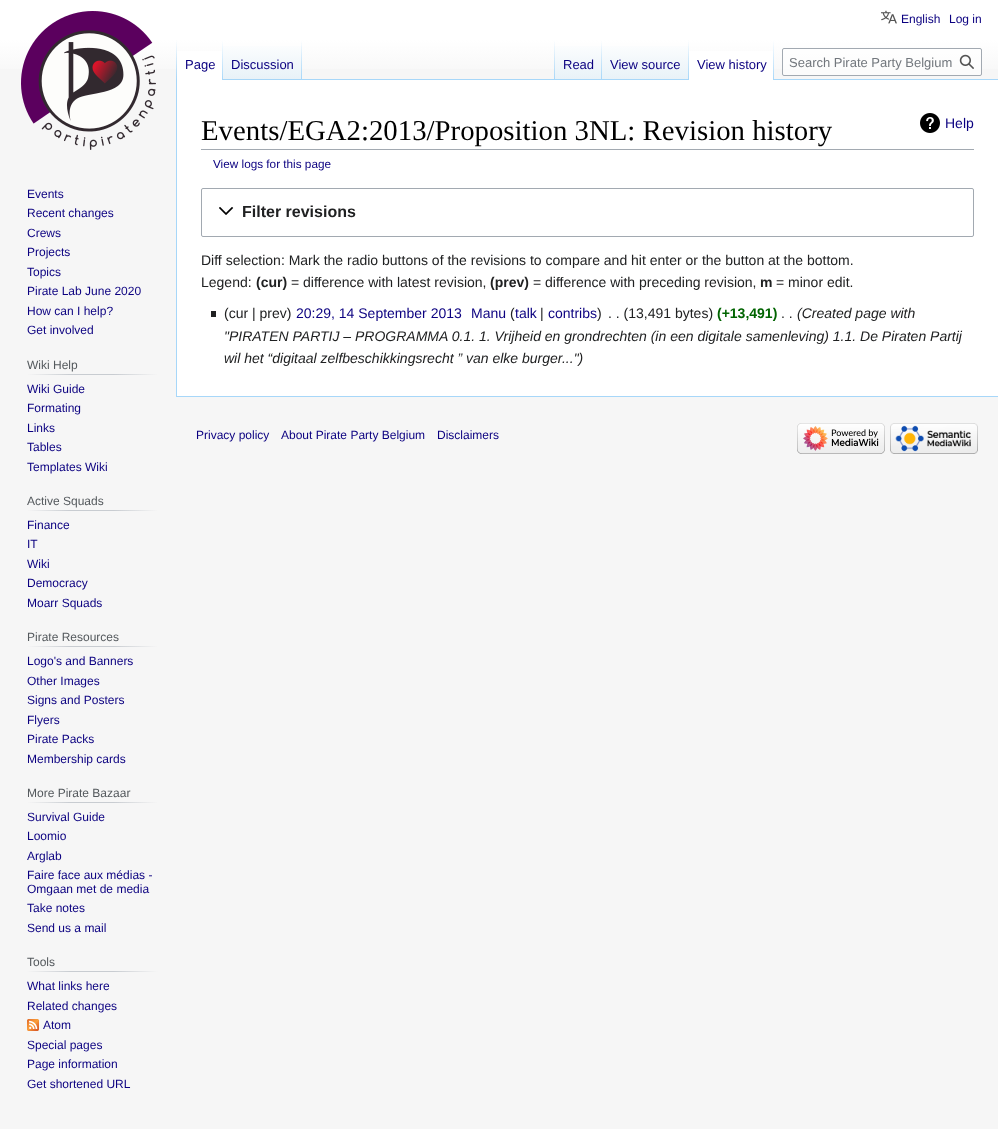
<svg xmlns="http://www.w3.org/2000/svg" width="998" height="1129">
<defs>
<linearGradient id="g1" gradientUnits="userSpaceOnUse" x1="499" y1="0" x2="499" y2="80"><stop offset="0.5" stop-color="#fff"/><stop offset="1" stop-color="#f6f6f6"/></linearGradient>
<linearGradient id="g2" gradientUnits="userSpaceOnUse" x1="177" y1="40" x2="177" y2="80"><stop offset="0" stop-color="#a7d7f9" stop-opacity="0"/><stop offset="1" stop-color="#a7d7f9"/></linearGradient>
<linearGradient id="g3" gradientUnits="userSpaceOnUse" x1="223" y1="40" x2="223" y2="80"><stop offset="0" stop-color="#fff"/><stop offset="1" stop-color="#a7d7f9"/></linearGradient>
<linearGradient id="g4" gradientUnits="userSpaceOnUse" x1="263" y1="80" x2="263" y2="40"><stop offset="0" stop-color="#77c1f6"/><stop offset="0.03" stop-color="#e8f2f8"/><stop offset="1" stop-color="#fff"/></linearGradient>
<linearGradient id="g5" gradientUnits="userSpaceOnUse" x1="302" y1="40" x2="302" y2="80"><stop offset="0" stop-color="#a7d7f9" stop-opacity="0"/><stop offset="1" stop-color="#a7d7f9"/></linearGradient>
<linearGradient id="g6" gradientUnits="userSpaceOnUse" x1="555" y1="40" x2="555" y2="80"><stop offset="0" stop-color="#a7d7f9" stop-opacity="0"/><stop offset="1" stop-color="#a7d7f9"/></linearGradient>
<linearGradient id="g7" gradientUnits="userSpaceOnUse" x1="579" y1="80" x2="579" y2="40"><stop offset="0" stop-color="#77c1f6"/><stop offset="0.03" stop-color="#e8f2f8"/><stop offset="1" stop-color="#fff"/></linearGradient>
<linearGradient id="g8" gradientUnits="userSpaceOnUse" x1="602" y1="40" x2="602" y2="80"><stop offset="0" stop-color="#a7d7f9" stop-opacity="0"/><stop offset="1" stop-color="#a7d7f9"/></linearGradient>
<linearGradient id="g9" gradientUnits="userSpaceOnUse" x1="646" y1="80" x2="646" y2="40"><stop offset="0" stop-color="#77c1f6"/><stop offset="0.03" stop-color="#e8f2f8"/><stop offset="1" stop-color="#fff"/></linearGradient>
<linearGradient id="g10" gradientUnits="userSpaceOnUse" x1="689" y1="40" x2="689" y2="80"><stop offset="0" stop-color="#a7d7f9" stop-opacity="0"/><stop offset="1" stop-color="#a7d7f9"/></linearGradient>
<linearGradient id="g11" gradientUnits="userSpaceOnUse" x1="774" y1="40" x2="774" y2="80"><stop offset="0" stop-color="#fff"/><stop offset="1" stop-color="#a7d7f9"/></linearGradient>
<linearGradient id="g12" gradientUnits="userSpaceOnUse" x1="27" y1="375" x2="158" y2="375"><stop offset="0" stop-color="#f6f6f6"/><stop offset="0.33" stop-color="#c8ccd1"/><stop offset="0.66" stop-color="#c8ccd1"/><stop offset="1" stop-color="#f6f6f6"/></linearGradient>
<linearGradient id="g13" gradientUnits="userSpaceOnUse" x1="27" y1="511" x2="158" y2="511"><stop offset="0" stop-color="#f6f6f6"/><stop offset="0.33" stop-color="#c8ccd1"/><stop offset="0.66" stop-color="#c8ccd1"/><stop offset="1" stop-color="#f6f6f6"/></linearGradient>
<linearGradient id="g14" gradientUnits="userSpaceOnUse" x1="27" y1="647" x2="158" y2="647"><stop offset="0" stop-color="#f6f6f6"/><stop offset="0.33" stop-color="#c8ccd1"/><stop offset="0.66" stop-color="#c8ccd1"/><stop offset="1" stop-color="#f6f6f6"/></linearGradient>
<linearGradient id="g15" gradientUnits="userSpaceOnUse" x1="27" y1="803" x2="158" y2="803"><stop offset="0" stop-color="#f6f6f6"/><stop offset="0.33" stop-color="#c8ccd1"/><stop offset="0.66" stop-color="#c8ccd1"/><stop offset="1" stop-color="#f6f6f6"/></linearGradient>
<linearGradient id="g16" gradientUnits="userSpaceOnUse" x1="27" y1="972" x2="158" y2="972"><stop offset="0" stop-color="#f6f6f6"/><stop offset="0.33" stop-color="#c8ccd1"/><stop offset="0.66" stop-color="#c8ccd1"/><stop offset="1" stop-color="#f6f6f6"/></linearGradient>
</defs>
<rect width="100%" height="100%" fill="#f6f6f6"/>
<rect width="998" height="69" fill="url(#g1)"/>
<image x="881" y="10" width="16" height="14" href="media/1.png"/>
<text x="901" y="23" style="font-family:Liberation Sans;font-size:12px;fill:#0b0080">English</text>
<text x="949" y="23" style="font-family:Liberation Sans;font-size:12px;fill:#0b0080">Log in</text>
<rect x="176" y="396" width="822" height="1" fill="#a7d7f9"/>
<rect x="176" y="79" width="1" height="318" fill="#a7d7f9"/>
<rect x="176" y="40" width="1" height="40" fill="url(#g2)"/>
<rect x="177" y="51" width="45" height="29" fill="#fff"/>
<rect x="222" y="40" width="1" height="40" fill="url(#g3)"/>
<text x="185" y="69" style="font-family:Liberation Sans;font-size:13px;fill:#0b0080">Page</text>
<rect x="223" y="46" width="79" height="34" fill="url(#g4)"/>
<rect x="301" y="40" width="1" height="40" fill="url(#g5)"/>
<text x="231" y="69" style="font-family:Liberation Sans;font-size:13px;fill:#0b0080">Discussion</text>
<rect x="302" y="79" width="696" height="1" fill="#a7d7f9"/>
<rect x="554" y="40" width="1" height="40" fill="url(#g6)"/>
<rect x="555" y="46" width="47" height="33" fill="url(#g7)"/>
<rect x="601" y="40" width="1" height="40" fill="url(#g8)"/>
<text x="563" y="69" style="font-family:Liberation Sans;font-size:13px;fill:#0b0080">Read</text>
<rect x="602" y="46" width="87" height="33" fill="url(#g9)"/>
<rect x="688" y="40" width="1" height="40" fill="url(#g10)"/>
<text x="610" y="69" style="font-family:Liberation Sans;font-size:13px;fill:#0b0080">View source</text>
<rect x="689" y="51" width="84" height="29" fill="#fff"/>
<rect x="773" y="40" width="1" height="40" fill="url(#g11)"/>
<text x="697" y="69" style="font-family:Liberation Sans;font-size:13px;fill:#0b0080">View history</text>
<rect x="782.5" y="48.5" width="199" height="27" rx="1.5" fill="#ffffff80" stroke="#a2a9b1"/>
<text x="789" y="67" style="font-family:Liberation Sans;font-size:13px;fill:#72777d">Search Pirate Party Belgium</text>
<image x="959" y="54" width="15" height="15" href="media/2.png"/>
<image x="21" y="11" width="135" height="139" href="media/3.png"/>
<text x="27" y="198" style="font-family:Liberation Sans;font-size:12px;fill:#0b0080">Events</text>
<text x="27" y="217" style="font-family:Liberation Sans;font-size:12px;fill:#0b0080">Recent changes</text>
<text x="27" y="237" style="font-family:Liberation Sans;font-size:12px;fill:#0b0080">Crews</text>
<text x="27" y="256" style="font-family:Liberation Sans;font-size:12px;fill:#0b0080">Projects</text>
<text x="27" y="276" style="font-family:Liberation Sans;font-size:12px;fill:#0b0080">Topics</text>
<text x="27" y="295" style="font-family:Liberation Sans;font-size:12px;fill:#0b0080">Pirate Lab June 2020</text>
<text x="27" y="315" style="font-family:Liberation Sans;font-size:12px;fill:#0b0080">How can I help?</text>
<text x="27" y="334" style="font-family:Liberation Sans;font-size:12px;fill:#0b0080">Get involved</text>
<rect x="27" y="374" width="131" height="1" fill="url(#g12)"/>
<text x="27" y="369" style="font-family:Liberation Sans;font-size:12px;fill:#54595d">Wiki Help</text>
<text x="27" y="393" style="font-family:Liberation Sans;font-size:12px;fill:#0b0080">Wiki Guide</text>
<text x="27" y="412" style="font-family:Liberation Sans;font-size:12px;fill:#0b0080">Formating</text>
<text x="27" y="432" style="font-family:Liberation Sans;font-size:12px;fill:#0b0080">Links</text>
<text x="27" y="451" style="font-family:Liberation Sans;font-size:12px;fill:#0b0080">Tables</text>
<text x="27" y="471" style="font-family:Liberation Sans;font-size:12px;fill:#0b0080">Templates Wiki</text>
<rect x="27" y="510" width="131" height="1" fill="url(#g13)"/>
<text x="27" y="505" style="font-family:Liberation Sans;font-size:12px;fill:#54595d">Active Squads</text>
<text x="27" y="529" style="font-family:Liberation Sans;font-size:12px;fill:#0b0080">Finance</text>
<text x="27" y="548" style="font-family:Liberation Sans;font-size:12px;fill:#0b0080">IT</text>
<text x="27" y="568" style="font-family:Liberation Sans;font-size:12px;fill:#0b0080">Wiki</text>
<text x="27" y="587" style="font-family:Liberation Sans;font-size:12px;fill:#0b0080">Democracy</text>
<text x="27" y="607" style="font-family:Liberation Sans;font-size:12px;fill:#0b0080">Moarr Squads</text>
<rect x="27" y="646" width="131" height="1" fill="url(#g14)"/>
<text x="27" y="641" style="font-family:Liberation Sans;font-size:12px;fill:#54595d">Pirate Resources</text>
<text x="27" y="665" style="font-family:Liberation Sans;font-size:12px;fill:#0b0080">Logo's and Banners</text>
<text x="27" y="685" style="font-family:Liberation Sans;font-size:12px;fill:#0b0080">Other Images</text>
<text x="27" y="704" style="font-family:Liberation Sans;font-size:12px;fill:#0b0080">Signs and Posters</text>
<text x="27" y="724" style="font-family:Liberation Sans;font-size:12px;fill:#0b0080">Flyers</text>
<text x="27" y="743" style="font-family:Liberation Sans;font-size:12px;fill:#0b0080">Pirate Packs</text>
<text x="27" y="763" style="font-family:Liberation Sans;font-size:12px;fill:#0b0080">Membership cards</text>
<rect x="27" y="802" width="131" height="1" fill="url(#g15)"/>
<text x="27" y="797" style="font-family:Liberation Sans;font-size:12px;fill:#54595d">More Pirate Bazaar</text>
<text x="27" y="821" style="font-family:Liberation Sans;font-size:12px;fill:#0b0080">Survival Guide</text>
<text x="27" y="840" style="font-family:Liberation Sans;font-size:12px;fill:#0b0080">Loomio</text>
<text x="27" y="860" style="font-family:Liberation Sans;font-size:12px;fill:#0b0080">Arglab</text>
<text x="27" y="879" style="font-family:Liberation Sans;font-size:12px;fill:#0b0080">Faire face aux médias -</text>
<text x="27" y="893" style="font-family:Liberation Sans;font-size:12px;fill:#0b0080">Omgaan met de media</text>
<text x="27" y="912" style="font-family:Liberation Sans;font-size:12px;fill:#0b0080">Take notes</text>
<text x="27" y="932" style="font-family:Liberation Sans;font-size:12px;fill:#0b0080">Send us a mail</text>
<rect x="27" y="971" width="131" height="1" fill="url(#g16)"/>
<text x="27" y="966" style="font-family:Liberation Sans;font-size:12px;fill:#54595d">Tools</text>
<text x="27" y="990" style="font-family:Liberation Sans;font-size:12px;fill:#0b0080">What links here</text>
<text x="27" y="1010" style="font-family:Liberation Sans;font-size:12px;fill:#0b0080">Related changes</text>
<image x="27" y="1019" width="12" height="12" href="media/4.png"/>
<text x="43" y="1029" style="font-family:Liberation Sans;font-size:12px;fill:#0b0080">Atom</text>
<text x="27" y="1049" style="font-family:Liberation Sans;font-size:12px;fill:#0b0080">Special pages</text>
<text x="27" y="1068" style="font-family:Liberation Sans;font-size:12px;fill:#0b0080">Page information</text>
<text x="27" y="1088" style="font-family:Liberation Sans;font-size:12px;fill:#0b0080">Get shortened URL</text>
<rect x="177" y="80" width="821" height="316" fill="#fff"/>
<rect x="201" y="149" width="773" height="1" fill="#a2a9b1"/>
<text x="201" y="140" style="font-family:Liberation Serif;font-size:28.8px;fill:#000">Events/EGA2:2013/Proposition 3NL: Revision history</text>
<image x="920" y="113" width="20" height="20" href="media/5.png"/>
<text x="945" y="128" style="font-family:Liberation Sans;font-size:14px;fill:#0b0080">Help</text>
<text x="213" y="168" style="font-family:Liberation Sans;font-size:11.75px;fill:#0b0080">View logs for this page</text>
<rect x="201.5" y="188.5" width="772" height="48" rx="1.5" fill="none" stroke="#a2a9b1"/>
<image x="219" y="207" width="15" height="8" href="media/6.png"/>
<text x="242" y="217" style="font-family:Liberation Sans;font-size:16px;font-weight:bold;fill:#202122">Filter revisions</text>
<text x="201" y="265" style="font-family:Liberation Sans;font-size:14px;fill:#202122">Diff selection: Mark the radio buttons of the revisions to compare and hit enter or the button at the bottom.</text>
<text x="201" y="287" style="font-family:Liberation Sans;font-size:14px;fill:#202122">Legend:</text>
<text x="256" y="287" style="font-family:Liberation Sans;font-size:14px;font-weight:bold;fill:#202122">(cur)</text>
<text x="291" y="287" style="font-family:Liberation Sans;font-size:14px;fill:#202122">= difference with latest revision,</text>
<text x="490" y="287" style="font-family:Liberation Sans;font-size:14px;font-weight:bold;fill:#202122">(prev)</text>
<text x="533" y="287" style="font-family:Liberation Sans;font-size:14px;fill:#202122">= difference with preceding revision,</text>
<text x="760" y="287" style="font-family:Liberation Sans;font-size:14px;font-weight:bold;fill:#202122">m</text>
<text x="776" y="287" style="font-family:Liberation Sans;font-size:14px;fill:#202122">= minor edit.</text>
<rect x="211" y="311" width="5" height="6" fill="#202122"/>
<text x="224" y="318" style="font-family:Liberation Sans;font-size:14px;fill:#202122">(cur | prev)</text>
<text x="296" y="318" style="font-family:Liberation Sans;font-size:14px;fill:#0b0080">20:29, 14 September 2013</text>
<text x="471" y="318" style="font-family:Liberation Sans;font-size:14px;fill:#0b0080">Manu</text>
<text x="510" y="318" style="font-family:Liberation Sans;font-size:14px;fill:#202122">(</text>
<text x="515" y="318" style="font-family:Liberation Sans;font-size:14px;fill:#0b0080">talk</text>
<text x="540" y="318" style="font-family:Liberation Sans;font-size:14px;fill:#202122">|</text>
<text x="548" y="318" style="font-family:Liberation Sans;font-size:14px;fill:#0b0080">contribs</text>
<text x="597" y="318" style="font-family:Liberation Sans;font-size:14px;fill:#202122">)</text>
<text x="608" y="318" style="font-family:Liberation Sans;font-size:14px;fill:#202122">. . (13,491 bytes)</text>
<text x="717" y="318" style="font-family:Liberation Sans;font-size:14px;font-weight:bold;fill:#006400">(+13,491)</text>
<text x="781" y="318" style="font-family:Liberation Sans;font-size:14px;fill:#202122">. .</text>
<text x="797" y="318" style="font-family:Liberation Sans;font-size:14px;font-style:italic;fill:#202122">(Created page with</text>
<text x="224" y="341" style="font-family:Liberation Sans;font-size:14px;font-style:italic;fill:#202122">"PIRATEN PARTIJ – PROGRAMMA 0.1. 1. Vrijheid en grondrechten (in een digitale samenleving) 1.1. De Piraten Partij</text>
<text x="224" y="363" style="font-family:Liberation Sans;font-size:14px;font-style:italic;fill:#202122">wil het “digitaal zelfbeschikkingsrecht ” van elke burger...")</text>
<text x="196" y="439" style="font-family:Liberation Sans;font-size:12px;fill:#0b0080">Privacy policy</text>
<text x="281" y="439" style="font-family:Liberation Sans;font-size:12px;fill:#0b0080">About Pirate Party Belgium</text>
<text x="437" y="439" style="font-family:Liberation Sans;font-size:12px;fill:#0b0080">Disclaimers</text>
<image x="797" y="423" width="88" height="31" href="media/7.png"/>
<image x="890" y="423" width="88" height="31" href="media/8.png"/>
</svg>
